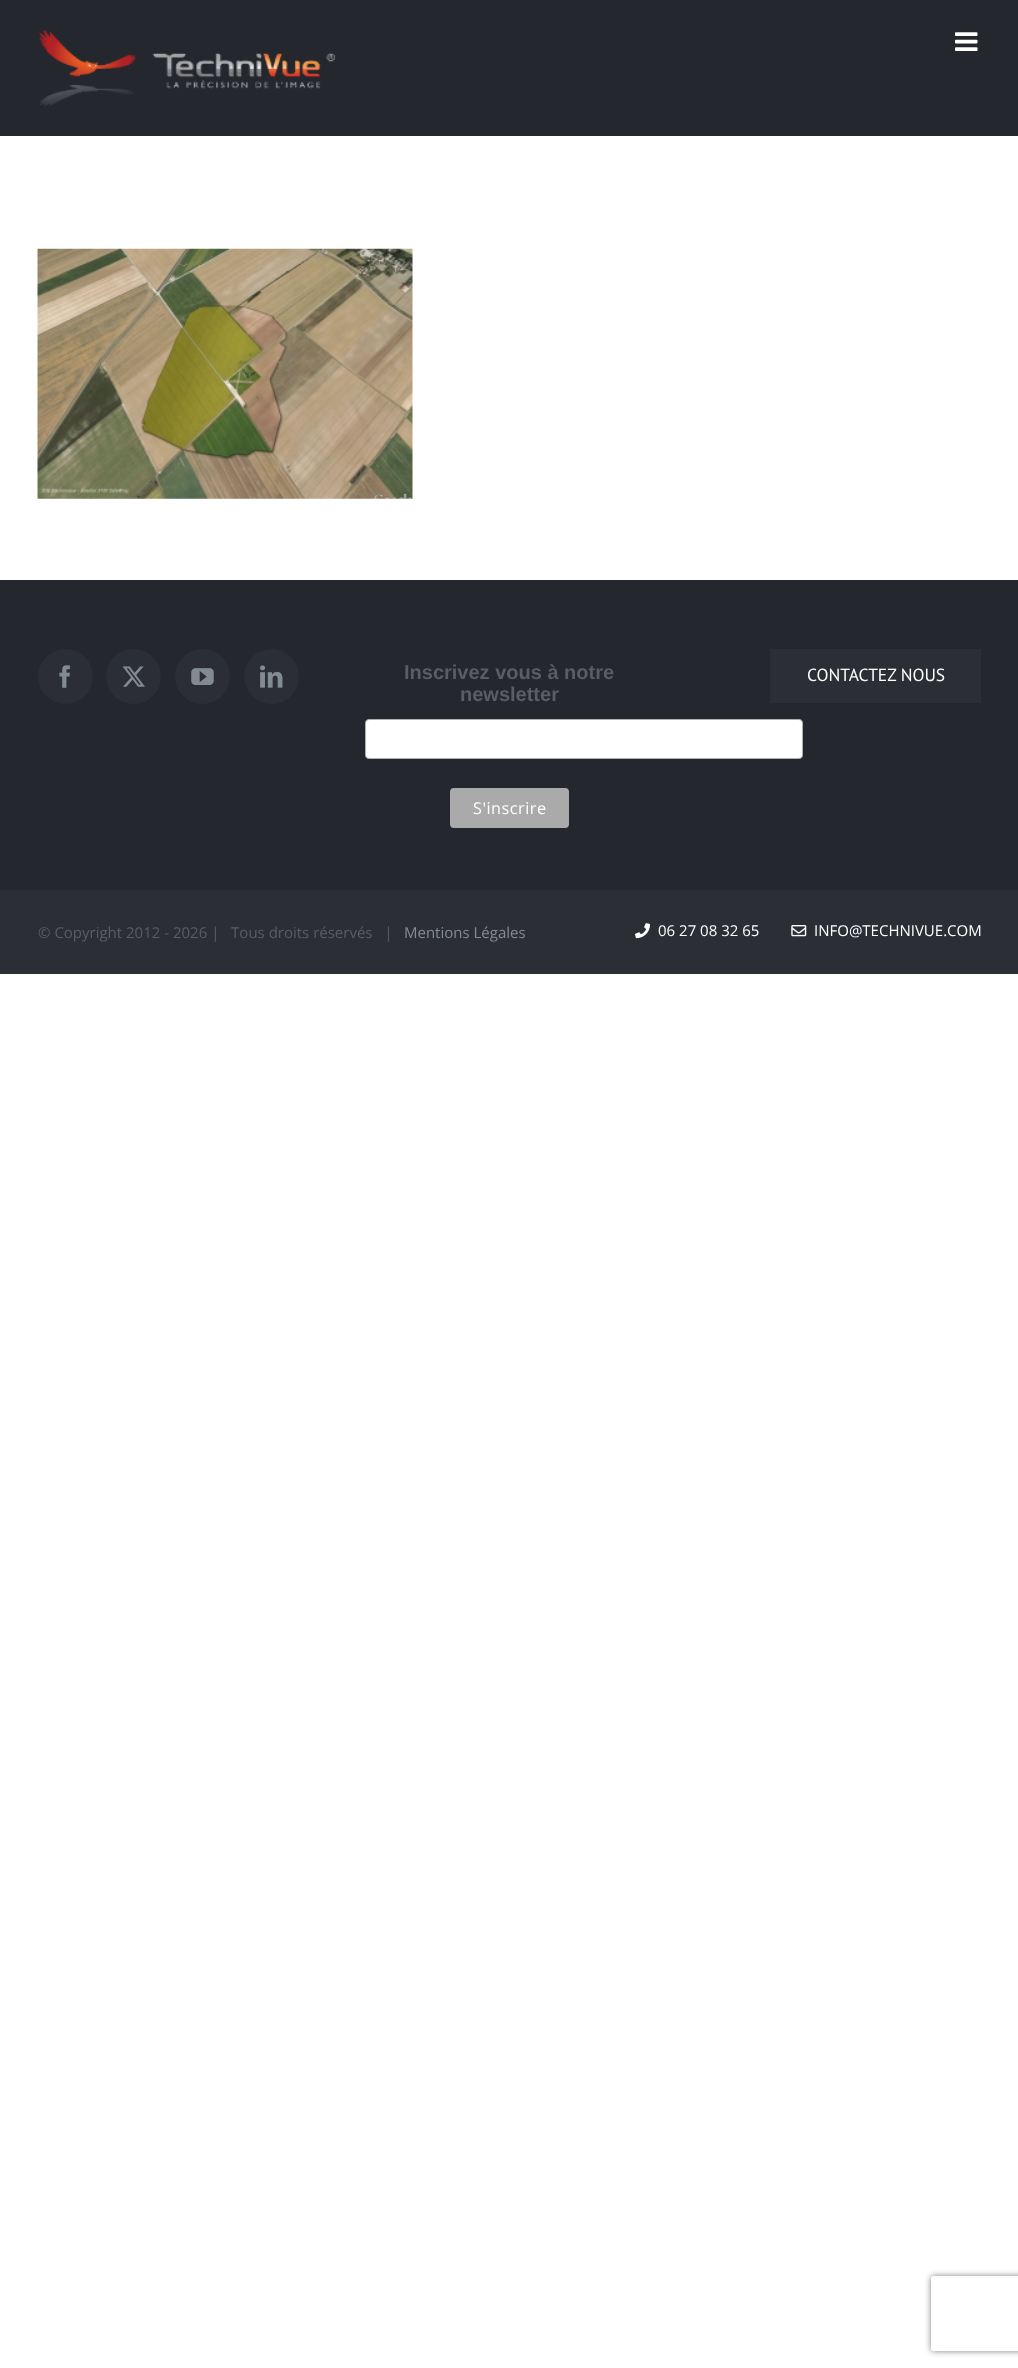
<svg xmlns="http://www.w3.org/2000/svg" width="1018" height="2368">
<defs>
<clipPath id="clip1"><path d="M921 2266h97v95h-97zm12.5 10h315c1.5 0 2.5 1 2.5 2.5v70c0 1.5-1 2.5-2.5 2.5h-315c-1.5 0-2.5-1-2.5-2.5v-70c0-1.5 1-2.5 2.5-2.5z" clip-rule="evenodd"/></clipPath>
</defs>
<rect width="100%" height="100%" fill="#fff"/>
<rect width="1018" height="136" fill="#24272d"/>
<image x="38" y="30" width="298" height="77" href="media/1.png"/>
<image x="955" y="32" width="23" height="19" href="media/2.png"/>
<image x="37" y="248" width="376" height="251" href="media/3.png"/>
<rect y="580" width="1018" height="310" fill="#24272d"/>
<circle cx="65.5" cy="676.5" r="27.5" fill="#2b2e35"/>
<image x="59" y="665" width="11" height="23" href="media/4.png"/>
<circle cx="133.5" cy="676.5" r="27.5" fill="#2b2e35"/>
<image x="122" y="666" width="23" height="21" href="media/5.png"/>
<circle cx="202.5" cy="676.5" r="27.5" fill="#2b2e35"/>
<image x="191" y="668" width="23" height="17" href="media/6.png"/>
<circle cx="271.5" cy="676.5" r="27.5" fill="#2b2e35"/>
<image x="260" y="665" width="23" height="23" href="media/7.png"/>
<text x="404" y="679" style="font-family:Liberation Sans;font-size:20px;font-weight:bold;fill:#5a5d62">Inscrivez vous à notre</text>
<text x="460" y="701" style="font-family:Liberation Sans;font-size:20px;font-weight:bold;fill:#5a5d62">newsletter</text>
<rect x="365.5" y="719.5" width="437" height="39" rx="3.5" fill="#fff" stroke="#abb0b2"/>
<rect x="450" y="788" width="119" height="40" rx="4" fill="#aaa"/>
<text x="473" y="814" style="font-family:Open Sans;font-size:16.25px;letter-spacing:0.5px;fill:#fff">S'inscrire</text>
<rect x="770" y="649" width="211" height="54" fill="#2b2e35"/>
<text x="807" y="681" style="font-family:PT Sans;font-size:17.5px;fill:#fff">CONTACTEZ NOUS</text>
<rect y="890" width="1018" height="84" fill="#2b2e35"/>
<text x="38" y="938" style="font-family:Open Sans;font-size:15px;fill:#5a5d62" xml:space="preserve">© Copyright 2012 - 2026 |   Tous droits réservés   |</text>
<text x="404" y="938" style="font-family:Open Sans;font-size:15px;fill:#868a92">Mentions Légales</text>
<image x="635" y="923" width="15" height="16" href="media/8.png"/>
<text x="658" y="936" style="font-family:Open Sans;font-size:15px;fill:#fff">06 27 08 32 65</text>
<image x="791" y="925" width="16" height="12" href="media/9.png"/>
<text x="814" y="936" style="font-family:Open Sans;font-size:15px;fill:#fff">INFO@TECHNIVUE.COM</text>
<g clip-path="url(#clip1)">
<rect x="931" y="2276" width="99" height="75" rx="2.5" fill="#808080" filter="blur(3px)"/>
</g>
</svg>
